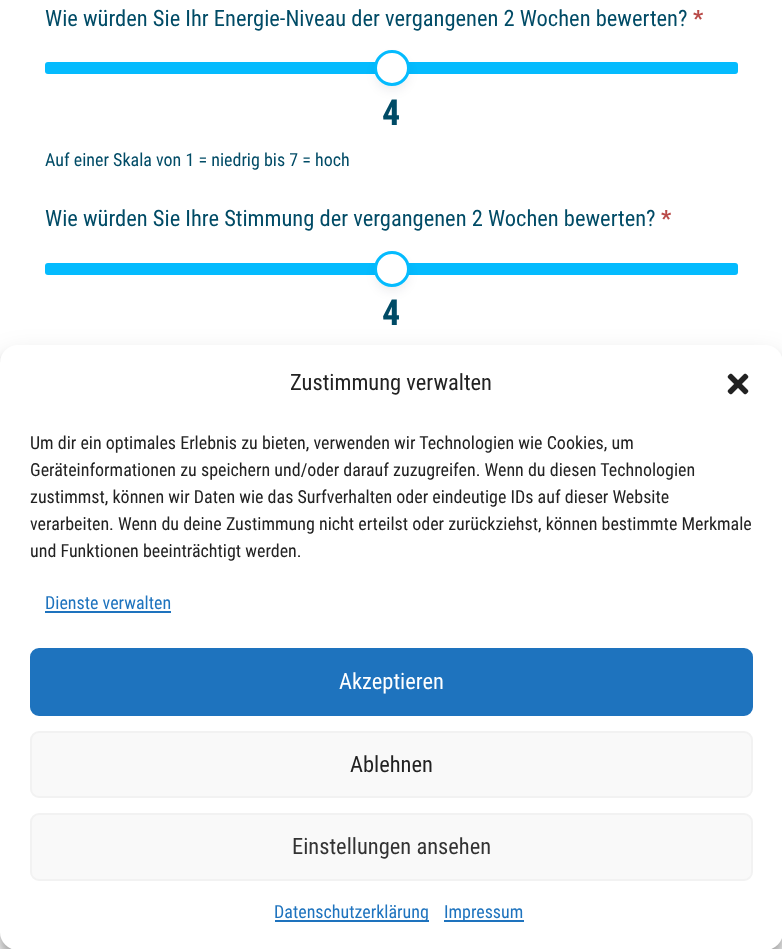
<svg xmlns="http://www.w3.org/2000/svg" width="782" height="949">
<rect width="100%" height="100%" fill="#fff"/>
<text x="45" y="26" style="font-family:Roboto Condensed;font-size:22.5px;fill:#004b66">Wie würden Sie Ihr Energie-Niveau der vergangenen 2 Wochen bewerten?</text>
<text x="693" y="26" style="font-family:Roboto Condensed;font-size:22.5px;font-weight:bold;fill:#b94a48">*</text>
<rect x="45" y="62" width="693" height="12" rx="3" fill="#04bbfe"/>
<rect x="377" y="59" width="30" height="30" rx="15" fill="#1018281a" filter="blur(6px)"/>
<circle cx="392" cy="68" r="16.5" fill="#fff" stroke="#04bbfe" stroke-width="3"/>
<text x="382" y="125" style="font-family:Roboto Condensed;font-size:36px;font-weight:bold;fill:#004b66">4</text>
<text x="45" y="166" style="font-family:Roboto Condensed;font-size:18px;fill:#004b66">Auf einer Skala von 1 = niedrig bis 7 = hoch</text>
<text x="45" y="226" style="font-family:Roboto Condensed;font-size:22.5px;fill:#004b66">Wie würden Sie Ihre Stimmung der vergangenen 2 Wochen bewerten?</text>
<text x="661" y="226" style="font-family:Roboto Condensed;font-size:22.5px;font-weight:bold;fill:#b94a48">*</text>
<rect x="45" y="263" width="693" height="12" rx="3" fill="#04bbfe"/>
<rect x="377" y="260" width="30" height="30" rx="15" fill="#1018281a" filter="blur(6px)"/>
<circle cx="392" cy="269" r="16.5" fill="#fff" stroke="#04bbfe" stroke-width="3"/>
<text x="382" y="325" style="font-family:Roboto Condensed;font-size:36px;font-weight:bold;fill:#004b66">4</text>
<rect y="354" width="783" height="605" rx="18" fill="#0000003b" filter="blur(4.5px)"/>
<rect y="360" width="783" height="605" rx="18" fill="#00000030" filter="blur(15px)"/>
<rect y="345" width="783" height="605" rx="18" fill="#fff"/>
<text x="290" y="390" style="font-family:Roboto Condensed;font-size:22.5px;fill:#222">Zustimmung verwalten</text>
<image x="727" y="373" width="22" height="22" href="media/1.png"/>
<text x="30" y="449" style="font-family:Roboto Condensed;font-size:18px;fill:#222">Um dir ein optimales Erlebnis zu bieten, verwenden wir Technologien wie Cookies, um</text>
<text x="30" y="476" style="font-family:Roboto Condensed;font-size:18px;fill:#222">Geräteinformationen zu speichern und/oder darauf zuzugreifen. Wenn du diesen Technologien</text>
<text x="30" y="503" style="font-family:Roboto Condensed;font-size:18px;fill:#222">zustimmst, können wir Daten wie das Surfverhalten oder eindeutige IDs auf dieser Website</text>
<text x="30" y="530" style="font-family:Roboto Condensed;font-size:18px;fill:#222">verarbeiten. Wenn du deine Zustimmung nicht erteilst oder zurückziehst, können bestimmte Merkmale</text>
<text x="30" y="557" style="font-family:Roboto Condensed;font-size:18px;fill:#222">und Funktionen beeinträchtigt werden.</text>
<text x="45" y="609" style="font-family:Roboto Condensed;font-size:18px;fill:#1e73be">Dienste verwalten</text>
<rect x="45" y="611" width="126" height="2" fill="#1e73be"/>
<rect x="31" y="649" width="721" height="66" rx="8" fill="#1e73be" stroke="#1e73be" stroke-width="2"/>
<text x="339" y="689" style="font-family:Roboto Condensed;font-size:22.5px;fill:#fff">Akzeptieren</text>
<rect x="31" y="732" width="721" height="65" rx="8" fill="#f9f9f9" stroke="#f2f2f2" stroke-width="2"/>
<text x="350" y="772" style="font-family:Roboto Condensed;font-size:22.5px;fill:#222">Ablehnen</text>
<rect x="31" y="814" width="721" height="66" rx="8" fill="#f9f9f9" stroke="#f2f2f2" stroke-width="2"/>
<text x="292" y="854" style="font-family:Roboto Condensed;font-size:22.5px;fill:#333">Einstellungen ansehen</text>
<rect x="275" y="920" width="154" height="2" fill="#1e73be"/>
<text x="274" y="918" style="font-family:Roboto Condensed;font-size:18px;fill:#1e73be">Datenschutzerklärung</text>
<rect x="444" y="920" width="80" height="2" fill="#1e73be"/>
<text x="444" y="918" style="font-family:Roboto Condensed;font-size:18px;fill:#1e73be">Impressum</text>
</svg>
